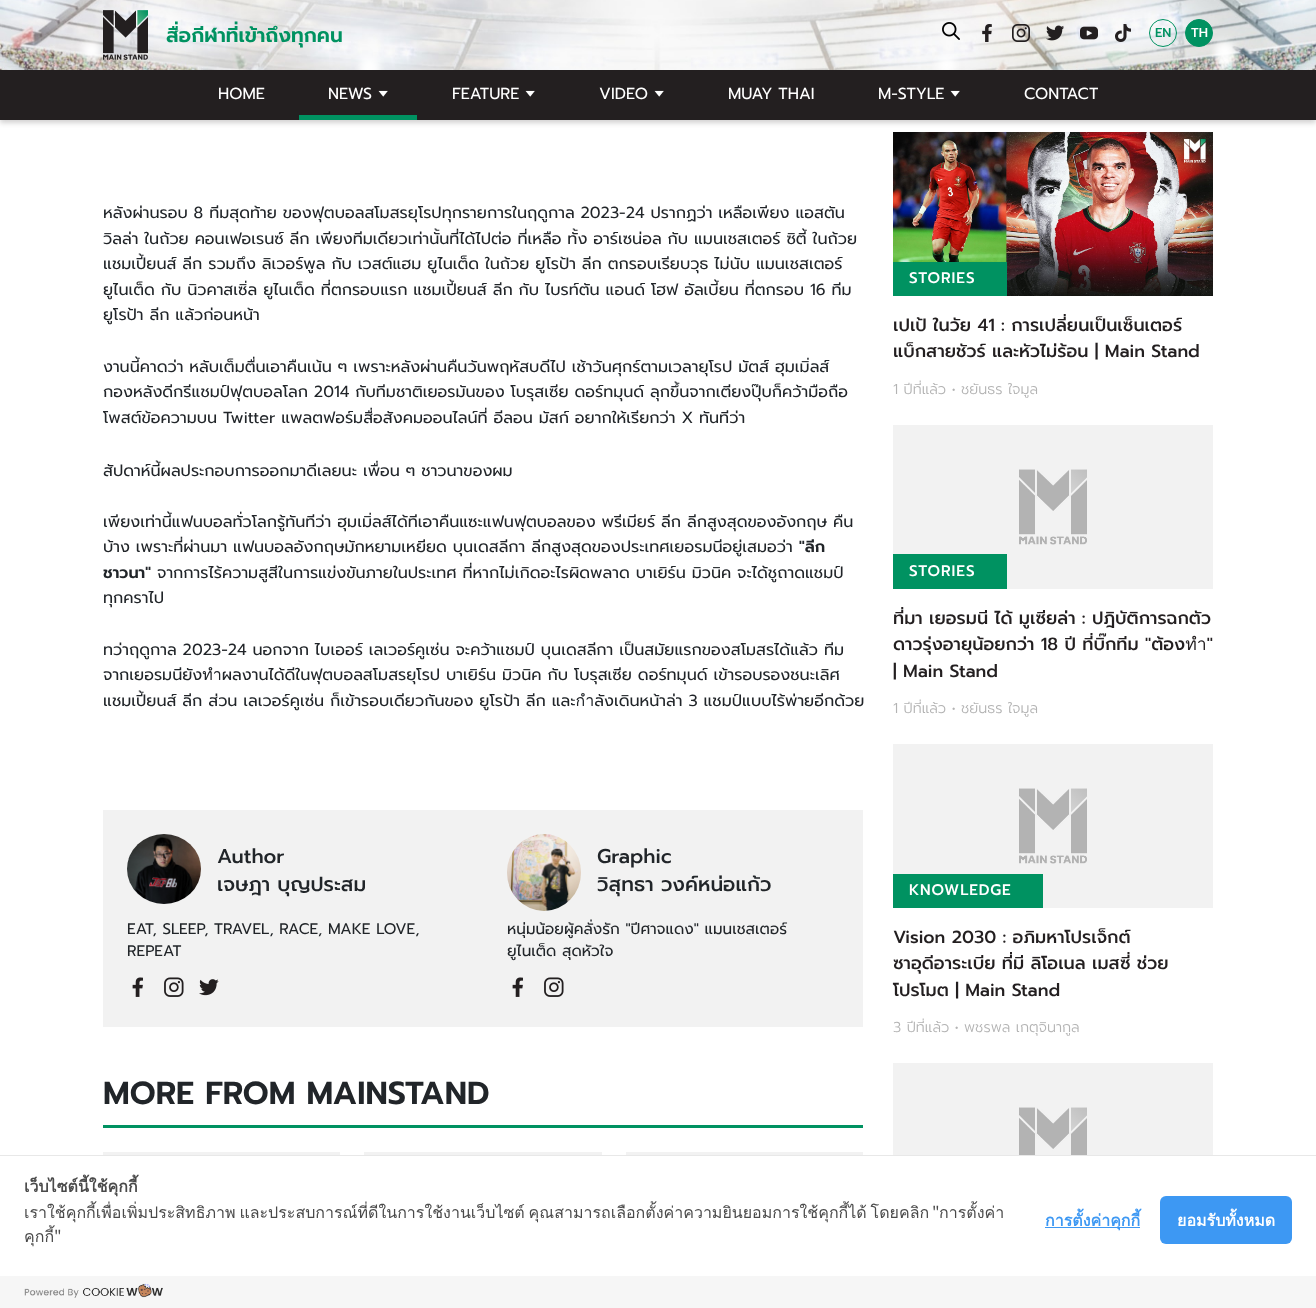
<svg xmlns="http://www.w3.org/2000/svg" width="1316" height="1308">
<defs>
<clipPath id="clip1"><rect x="597" y="871" width="242" height="28"/></clipPath>
<clipPath id="clip2"><rect x="507" y="918" width="332" height="43"/></clipPath>
<clipPath id="clip3"><rect x="893" y="605" width="320" height="79"/></clipPath>
</defs>
<rect width="100%" height="100%" fill="#fff"/>
<rect y="3" width="1316" height="120" fill="#231f2033" filter="blur(2.5px)"/>
<image x="0" y="0" width="1316" height="70" href="media/1.png"/>
<rect x="83" y="42" width="17" height="17" fill="#fff" filter="blur(4px)"/>
<image x="103" y="10" width="45" height="50" href="media/2.png"/>
<text x="166" y="42" style="font-family:Prompt;font-size:20px;font-weight:600;fill:#009261">สื่อกีฬาที่เข้าถึงทุกคน</text>
<image x="942" y="22" width="18" height="18" href="media/3.png"/>
<image x="982" y="24" width="10" height="18" href="media/4.png"/>
<image x="1012" y="24" width="18" height="18" href="media/5.png"/>
<image x="1046" y="25" width="18" height="16" href="media/6.png"/>
<image x="1080" y="26" width="18" height="14" href="media/7.png"/>
<image x="1115" y="24" width="16" height="18" href="media/8.png"/>
<circle cx="1163" cy="33" r="13.5" fill="none" stroke="#009261"/>
<text x="1155" y="37" style="font-family:Prompt;font-size:13px;font-weight:500;fill:#009261">EN</text>
<rect x="1216" y="42" width="17" height="17" fill="#fff" filter="blur(4px)"/>
<rect x="1217" y="52" width="17" height="17" fill="#fff" filter="blur(4px)"/>
<circle cx="1199" cy="33" r="13.5" fill="#009261" stroke="#009261"/>
<text x="1191" y="37" style="font-family:Prompt;font-size:13px;font-weight:500;fill:#fff">TH</text>
<rect x="361" y="57" width="17" height="17" fill="#fff" filter="blur(4px)"/>
<rect x="361" y="67" width="17" height="17" fill="#fff" filter="blur(4px)"/>
<rect x="938" y="57" width="17" height="17" fill="#fff" filter="blur(4px)"/>
<path d="M1224.5 60h1v1h-1z" fill="#fff"/>
<rect y="70" width="1316" height="50" fill="#231f20"/>
<text x="218" y="99" style="font-family:Prompt;font-size:16px;fill:#fff">HOME</text>
<text x="328" y="99" style="font-family:Prompt;font-size:16px;fill:#fff">NEWS</text>
<image x="378" y="90" width="10" height="7" href="media/9.png"/>
<rect x="299" y="115" width="118" height="5" fill="#009261"/>
<text x="452" y="99" style="font-family:Prompt;font-size:16px;fill:#fff">FEATURE</text>
<image x="525" y="90" width="10" height="7" href="media/9.png"/>
<text x="599" y="99" style="font-family:Prompt;font-size:16px;fill:#fff">VIDEO</text>
<image x="654" y="90" width="10" height="7" href="media/9.png"/>
<text x="728" y="99" style="font-family:Prompt;font-size:16px;fill:#fff">MUAY THAI</text>
<text x="878" y="99" style="font-family:Prompt;font-size:16px;fill:#fff">M-STYLE</text>
<image x="950" y="90" width="10" height="7" href="media/9.png"/>
<text x="1024" y="99" style="font-family:Prompt;font-size:16px;fill:#fff">CONTACT</text>
<text x="103" y="218" style="font-family:Prompt;font-size:16px;fill:#212529">หลังผ่านรอบ 8 ทีมสุดท้าย ของฟุตบอลสโมสรยุโรปทุกรายการในฤดูกาล 2023-24 ปรากฏว่า เหลือเพียง แอสตัน</text>
<text x="103" y="244" style="font-family:Prompt;font-size:16px;fill:#212529">วิลล่า ในถ้วย คอนเฟอเรนซ์ ลีก เพียงทีมเดียวเท่านั้นที่ได้ไปต่อ ที่เหลือ ทั้ง อาร์เซน่อล กับ แมนเชสเตอร์ ซิตี้ ในถ้วย</text>
<text x="103" y="269" style="font-family:Prompt;font-size:16px;fill:#212529">แชมเปี้ยนส์ ลีก รวมถึง ลิเวอร์พูล กับ เวสต์แฮม ยูไนเต็ด ในถ้วย ยูโรป้า ลีก ตกรอบเรียบวุธ ไม่นับ แมนเชสเตอร์</text>
<text x="103" y="295" style="font-family:Prompt;font-size:16px;fill:#212529">ยูไนเต็ด กับ นิวคาสเซิ่ล ยูไนเต็ด ที่ตกรอบแรก แชมเปี้ยนส์ ลีก กับ ไบรท์ตัน แอนด์ โฮฟ อัลเบี้ยน ที่ตกรอบ 16 ทีม</text>
<text x="103" y="320" style="font-family:Prompt;font-size:16px;fill:#212529">ยูโรป้า ลีก แล้วก่อนหน้า</text>
<text x="103" y="372" style="font-family:Prompt;font-size:16px;fill:#212529">งานนี้คาดว่า หลับเต็มตื่นเอาคืนเน้น ๆ เพราะหลังผ่านคืนวันพฤหัสบดีไป เช้าวันศุกร์ตามเวลายุโรป มัตส์ ฮุมเมิ่ลส์</text>
<text x="103" y="397" style="font-family:Prompt;font-size:16px;fill:#212529">กองหลังดีกรีแชมป์ฟุตบอลโลก 2014 กับทีมชาติเยอรมันของ โบรุสเซีย ดอร์ทมุนด์ ลุกขึ้นจากเตียงปุ๊บก็คว้ามือถือ</text>
<text x="103" y="423" style="font-family:Prompt;font-size:16px;fill:#212529">โพสต์ข้อความบน Twitter แพลตฟอร์มสื่อสังคมออนไลน์ที่ อีลอน มัสก์ อยากให้เรียกว่า X ทันทีว่า</text>
<text x="103" y="476" style="font-family:Prompt;font-size:16px;fill:#212529">สัปดาห์นี้ผลประกอบการออกมาดีเลยนะ เพื่อน ๆ ชาวนาของผม</text>
<text x="103" y="527" style="font-family:Prompt;font-size:16px;fill:#212529">เพียงเท่านี้แฟนบอลทั่วโลกรู้ทันทีว่า ฮุมเมิ่ลส์ได้ทีเอาคืนแซะแฟนฟุตบอลของ พรีเมียร์ ลีก ลีกสูงสุดของอังกฤษ คืน</text>
<text x="103" y="552" style="font-family:Prompt;font-size:16px;fill:#212529">บ้าง เพราะที่ผ่านมา แฟนบอลอังกฤษมักหยามเหยียด บุนเดสลีกา ลีกสูงสุดของประเทศเยอรมนีอยู่เสมอว่า</text>
<text x="799" y="552" style="font-family:Prompt;font-size:16px;font-weight:600;fill:#212529">"ลีก</text>
<text x="103" y="578" style="font-family:Prompt;font-size:16px;font-weight:600;fill:#212529">ชาวนา"</text>
<text x="157" y="578" style="font-family:Prompt;font-size:16px;fill:#212529">จากการไร้ความสูสีในการแข่งขันภายในประเทศ ที่หากไม่เกิดอะไรผิดพลาด บาเยิร์น มิวนิค จะได้ชูถาดแชมป์</text>
<text x="103" y="603" style="font-family:Prompt;font-size:16px;fill:#212529">ทุกคราไป</text>
<text x="103" y="655" style="font-family:Prompt;font-size:16px;fill:#212529">ทว่าฤดูกาล 2023-24 นอกจาก ไบเออร์ เลเวอร์คูเซ่น จะคว้าแชมป์ บุนเดสลีกา เป็นสมัยแรกของสโมสรได้แล้ว ทีม</text>
<text x="103" y="680" style="font-family:Prompt;font-size:16px;fill:#212529">จากเยอรมนียังทำผลงานได้ดีในฟุตบอลสโมสรยุโรป บาเยิร์น มิวนิค กับ โบรุสเซีย ดอร์ทมุนด์ เข้ารอบรองชนะเลิศ</text>
<text x="103" y="706" style="font-family:Prompt;font-size:16px;fill:#212529">แชมเปี้ยนส์ ลีก ส่วน เลเวอร์คูเซ่น ก็เข้ารอบเดียวกันของ ยูโรป้า ลีก และกำลังเดินหน้าล่า 3 แชมป์แบบไร้พ่ายอีกด้วย</text>
<rect x="103" y="810" width="760" height="217" fill="#f2f2f2"/>
<image x="127" y="834" width="74" height="70" href="media/10.png"/>
<text x="217" y="863" style="font-family:Prompt;font-size:20px;font-weight:500;fill:#212529">Author</text>
<text x="217" y="891" style="font-family:Prompt;font-size:20px;font-weight:500;fill:#212529">เจษฎา บุญประสม</text>
<text x="127" y="934" style="font-family:Prompt;font-size:15.25px;fill:#212529">EAT, SLEEP, TRAVEL, RACE, MAKE LOVE,</text>
<text x="127" y="956" style="font-family:Prompt;font-size:15.25px;fill:#212529">REPEAT</text>
<image x="132" y="977" width="11" height="20" href="media/11.png"/>
<image x="164" y="977" width="20" height="20" href="media/12.png"/>
<image x="199" y="979" width="20" height="17" href="media/13.png"/>
<image x="507" y="834" width="74" height="77" href="media/14.png"/>
<text x="597" y="863" style="font-family:Prompt;font-size:20px;font-weight:500;fill:#212529">Graphic</text>
<g clip-path="url(#clip1)">
<text x="597" y="891" style="font-family:Prompt;font-size:20px;font-weight:500;fill:#212529">วิสุทธา วงค์หน่อแก้ว</text>
</g>
<text x="507" y="934" style="font-family:Prompt;font-size:15.25px;fill:#212529">หนุ่มน้อยผู้คลั่งรัก "ปีศาจแดง" แมนเชสเตอร์</text>
<g clip-path="url(#clip2)">
<text x="507" y="956" style="font-family:Prompt;font-size:15.25px;fill:#212529">ยูไนเต็ด สุดหัวใจ</text>
</g>
<image x="512" y="977" width="11" height="20" href="media/11.png"/>
<image x="544" y="977" width="20" height="20" href="media/12.png"/>
<rect x="103" y="1125" width="760" height="3" fill="#009261"/>
<text x="103" y="1104" style="font-family:Prompt;font-size:32px;font-weight:600;fill:#212529">MORE FROM MAINSTAND</text>
<rect x="103" y="1152" width="237" height="3" fill="#f2f2f2"/>
<rect x="364" y="1152" width="238" height="3" fill="#f2f2f2"/>
<rect x="626" y="1152" width="237" height="3" fill="#f2f2f2"/>
<image x="893" y="132" width="320" height="164" href="media/15.png"/>
<rect x="893" y="262" width="114" height="34" fill="#009261"/>
<text x="909" y="283" style="font-family:Prompt;font-size:15.25px;font-weight:500;letter-spacing:1px;fill:#fff">STORIES</text>
<text x="893" y="331" style="font-family:Prompt;font-size:17.6px;font-weight:500;fill:#231f20">เปเป้ ในวัย 41 : การเปลี่ยนเป็นเซ็นเตอร์</text>
<text x="893" y="357" style="font-family:Prompt;font-size:17.6px;font-weight:500;fill:#231f20">แบ็กสายชัวร์ และหัวไม่ร้อน | Main Stand</text>
<text x="893" y="394" style="font-family:Prompt;font-size:14.4px;font-weight:300;fill:#b3b3b3">1 ปีที่แล้ว • ชยันธร ใจมูล</text>
<rect x="893" y="425" width="320" height="164" fill="#f2f2f2"/>
<image x="1019" y="469" width="68" height="76" href="media/16.png"/>
<rect x="893" y="554" width="114" height="35" fill="#009261"/>
<text x="909" y="576" style="font-family:Prompt;font-size:15.25px;font-weight:500;letter-spacing:1px;fill:#fff">STORIES</text>
<g clip-path="url(#clip3)">
<text x="893" y="624" style="font-family:Prompt;font-size:17.6px;font-weight:500;fill:#231f20">ที่มา เยอรมนี ได้ มูเซียล่า : ปฎิบัติการฉกตัว</text>
</g>
<text x="893" y="650" style="font-family:Prompt;font-size:17.6px;font-weight:500;fill:#231f20">ดาวรุ่งอายุน้อยกว่า 18 ปี ที่บิ๊กทีม "ต้องทำ"</text>
<text x="893" y="677" style="font-family:Prompt;font-size:17.6px;font-weight:500;fill:#231f20">| Main Stand</text>
<text x="893" y="713" style="font-family:Prompt;font-size:14.4px;font-weight:300;fill:#b3b3b3">1 ปีที่แล้ว • ชยันธร ใจมูล</text>
<rect x="893" y="744" width="320" height="164" fill="#f2f2f2"/>
<image x="1019" y="788" width="68" height="76" href="media/16.png"/>
<rect x="893" y="874" width="150" height="34" fill="#009261"/>
<text x="909" y="895" style="font-family:Prompt;font-size:15.25px;font-weight:500;letter-spacing:1px;fill:#fff">KNOWLEDGE</text>
<text x="893" y="943" style="font-family:Prompt;font-size:17.6px;font-weight:500;fill:#231f20">Vision 2030 : อภิมหาโปรเจ็กต์</text>
<text x="893" y="969" style="font-family:Prompt;font-size:17.6px;font-weight:500;fill:#231f20">ซาอุดีอาระเบีย ที่มี ลิโอเนล เมสซี่ ช่วย</text>
<text x="893" y="996" style="font-family:Prompt;font-size:17.6px;font-weight:500;fill:#231f20">โปรโมต | Main Stand</text>
<text x="893" y="1032" style="font-family:Prompt;font-size:14.4px;font-weight:300;fill:#b3b3b3">3 ปีที่แล้ว • พชรพล เกตุจินากูล</text>
<rect x="893" y="1063" width="320" height="92" fill="#f2f2f2"/>
<image x="1019" y="1107" width="68" height="48" href="media/17.png"/>
<rect y="1155" width="1316" height="1" fill="#e8e8e8"/>
<text x="24" y="1192" style="font-family:Loma;font-size:16px;font-weight:bold;fill:#4a4a4a">เว็บไซต์นี้ใช้คุกกี้</text>
<text x="24" y="1218" word-spacing="-1.5" style="font-family:Loma;font-size:16px;fill:#4a4a4a">เราใช้คุกกี้เพื่อเพิ่มประสิทธิภาพ และประสบการณ์ที่ดีในการใช้งานเว็บไซต์ คุณสามารถเลือกตั้งค่าความยินยอมการใช้คุกกี้ได้ โดยคลิก</text>
<text x="932" y="1218" style="font-family:Noto Sans JP;font-size:16px;fill:#4a4a4a">"</text>
<text x="939" y="1218" style="font-family:Loma;font-size:16px;fill:#4a4a4a">การตั้งค่า</text>
<text x="24" y="1242" style="font-family:Loma;font-size:16px;fill:#4a4a4a">คุกกี้</text>
<text x="54" y="1242" style="font-family:Noto Sans JP;font-size:16px;fill:#4a4a4a">"</text>
<rect x="1045" y="1227" width="95" height="1" fill="#3d98f3"/>
<text x="1045" y="1226" style="font-family:Loma;font-size:16px;font-weight:bold;fill:#3d98f3">การตั้งค่าคุกกี้</text>
<rect x="1160" y="1196" width="132" height="48" rx="6" fill="#3d98f3"/>
<text x="1177" y="1226" style="font-family:Loma;font-size:16px;font-weight:bold;fill:#fff">ยอมรับทั้งหมด</text>
<rect y="1276" width="1316" height="32" fill="#f6f6f6"/>
<image x="24" y="1283" width="139" height="15" href="media/18.png"/>
</svg>
